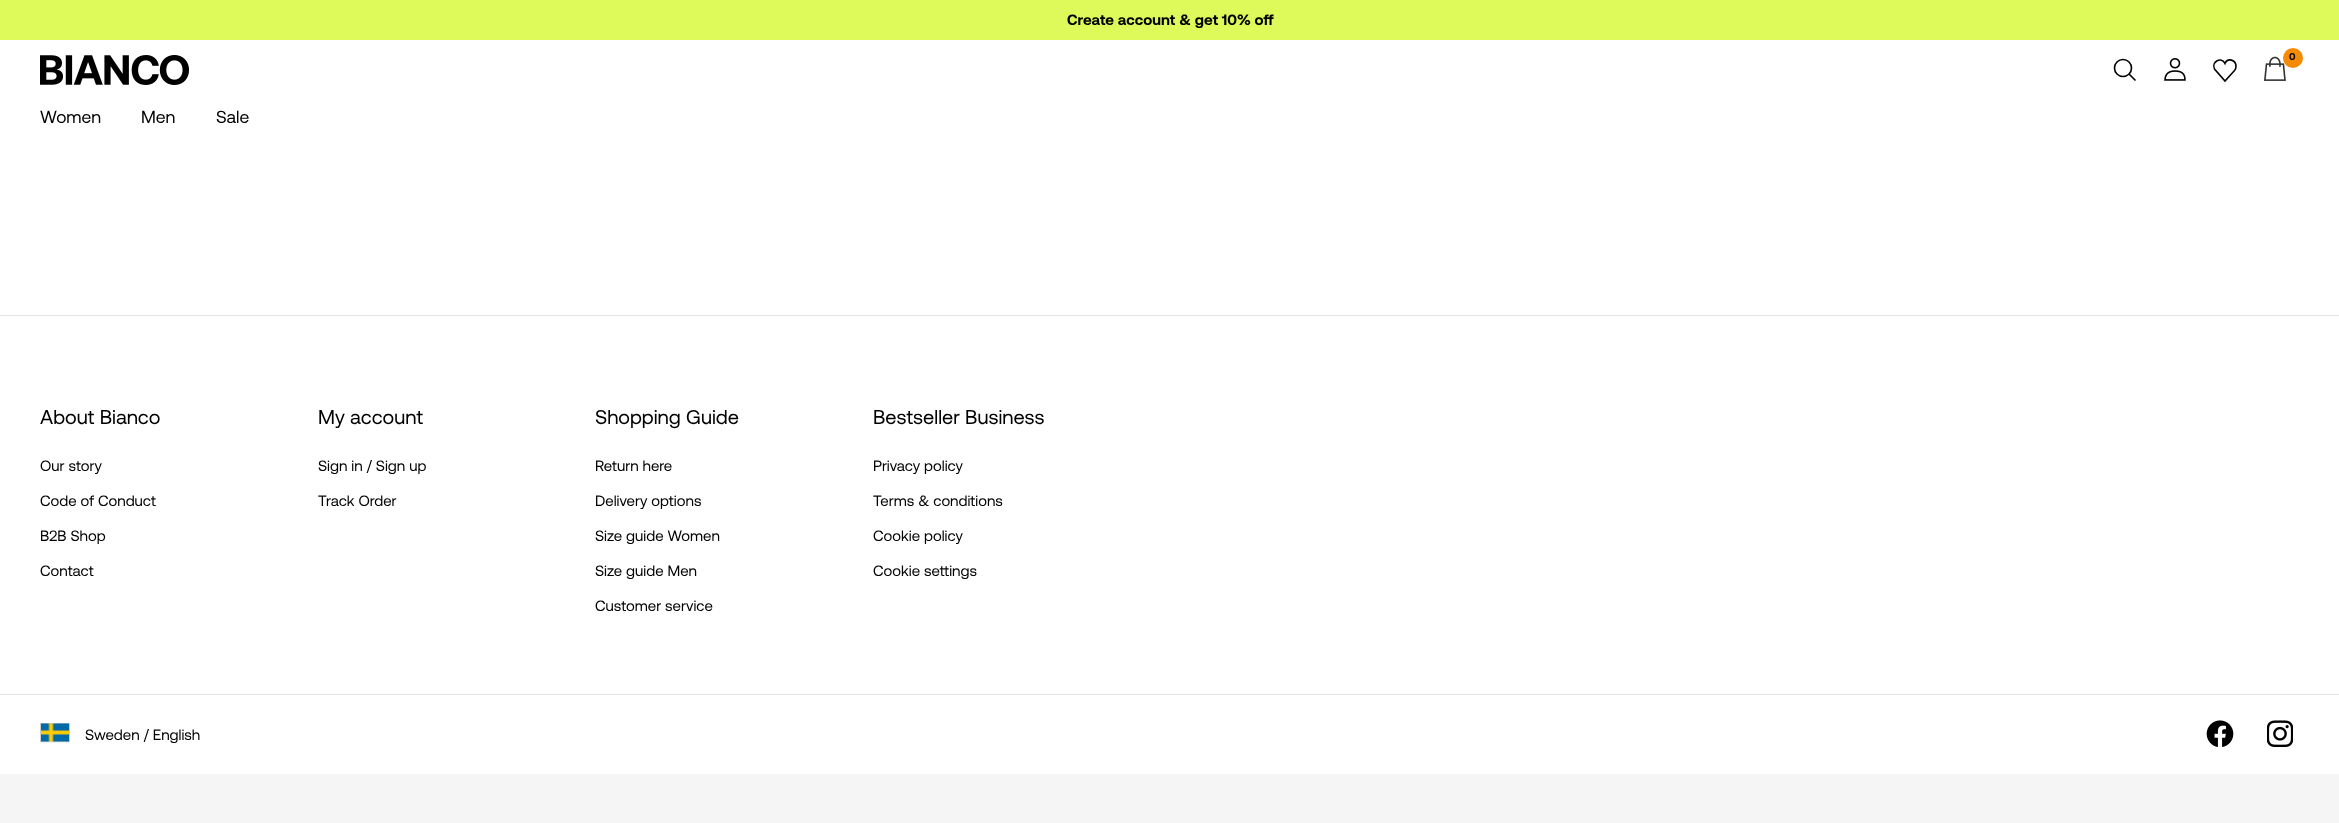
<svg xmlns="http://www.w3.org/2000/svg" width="2339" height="823">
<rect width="100%" height="100%" fill="#fff"/>
<rect width="2339" height="40" fill="#ddf95a"/>
<text x="1067" y="25" style="font-family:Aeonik;font-size:15px;font-weight:bold;fill:#000">Create account &amp; get 10% off</text>
<image x="40" y="55" width="149" height="30" href="media/1.png"/>
<image x="2264" y="56" width="22" height="25" href="media/2.png"/>
<circle cx="2293" cy="58" r="10" fill="#f58a07"/>
<text x="2289" y="60" style="font-family:Aeonik;font-size:10px;font-weight:bold;fill:#000">0</text>
<circle cx="2123" cy="68" r="8.5" fill="none" stroke="#000" stroke-width="1.6"/>
<path d="M2129 74l6.5 6.5" fill="none" stroke="#000" stroke-width="1.6"/>
<image x="2164" y="58" width="22" height="23" href="media/3.png"/>
<path d="M2236 66.5c0-7-8.5-9-11-3c-3.5-7.5-14-1.5-10.5 5.5l10.5 12l9.5-10.5c1-1 1.5-2.5 1.5-4z" fill="none" stroke="#000" stroke-width="1.6"/>
<text x="40" y="123" style="font-family:Aeonik;font-size:17.5px;fill:#000">Women</text>
<text x="141" y="123" style="font-family:Aeonik;font-size:17.5px;fill:#000">Men</text>
<text x="216" y="123" style="font-family:Aeonik;font-size:17.5px;fill:#000">Sale</text>
<rect y="315" width="2339" height="1" fill="#e4e4e4"/>
<text x="40" y="424" style="font-family:Aeonik;font-size:20px;fill:#000">About Bianco</text>
<text x="40" y="471" style="font-family:Aeonik;font-size:15px;fill:#000">Our story</text>
<text x="40" y="506" style="font-family:Aeonik;font-size:15px;fill:#000">Code of Conduct</text>
<text x="40" y="541" style="font-family:Aeonik;font-size:15px;fill:#000">B2B Shop</text>
<text x="40" y="576" style="font-family:Aeonik;font-size:15px;fill:#000">Contact</text>
<text x="318" y="424" style="font-family:Aeonik;font-size:20px;fill:#000">My account</text>
<text x="318" y="471" style="font-family:Aeonik;font-size:15px;fill:#000">Sign in / Sign up</text>
<text x="318" y="506" style="font-family:Aeonik;font-size:15px;fill:#000">Track Order</text>
<text x="595" y="424" style="font-family:Aeonik;font-size:20px;fill:#000">Shopping Guide</text>
<text x="595" y="471" style="font-family:Aeonik;font-size:15px;fill:#000">Return here</text>
<text x="595" y="506" style="font-family:Aeonik;font-size:15px;fill:#000">Delivery options</text>
<text x="595" y="541" style="font-family:Aeonik;font-size:15px;fill:#000">Size guide Women</text>
<text x="595" y="576" style="font-family:Aeonik;font-size:15px;fill:#000">Size guide Men</text>
<text x="595" y="611" style="font-family:Aeonik;font-size:15px;fill:#000">Customer service</text>
<text x="873" y="424" style="font-family:Aeonik;font-size:20px;fill:#000">Bestseller Business</text>
<text x="873" y="471" style="font-family:Aeonik;font-size:15px;fill:#000">Privacy policy</text>
<text x="873" y="506" style="font-family:Aeonik;font-size:15px;fill:#000">Terms &amp; conditions</text>
<text x="873" y="541" style="font-family:Aeonik;font-size:15px;fill:#000">Cookie policy</text>
<text x="873" y="576" style="font-family:Aeonik;font-size:15px;fill:#000">Cookie settings</text>
<rect y="694" width="2339" height="1" fill="#e4e4e4"/>
<image x="40" y="723" width="30" height="20" href="media/4.png"/>
<text x="85" y="740" style="font-family:Aeonik;font-size:15px;fill:#000">Sweden / English</text>
<image x="2206" y="720" width="28" height="27" href="media/5.png"/>
<image x="2267" y="720" width="26" height="27" href="media/6.png"/>
<rect y="774" width="2339" height="49" fill="#f5f5f5"/>
</svg>
